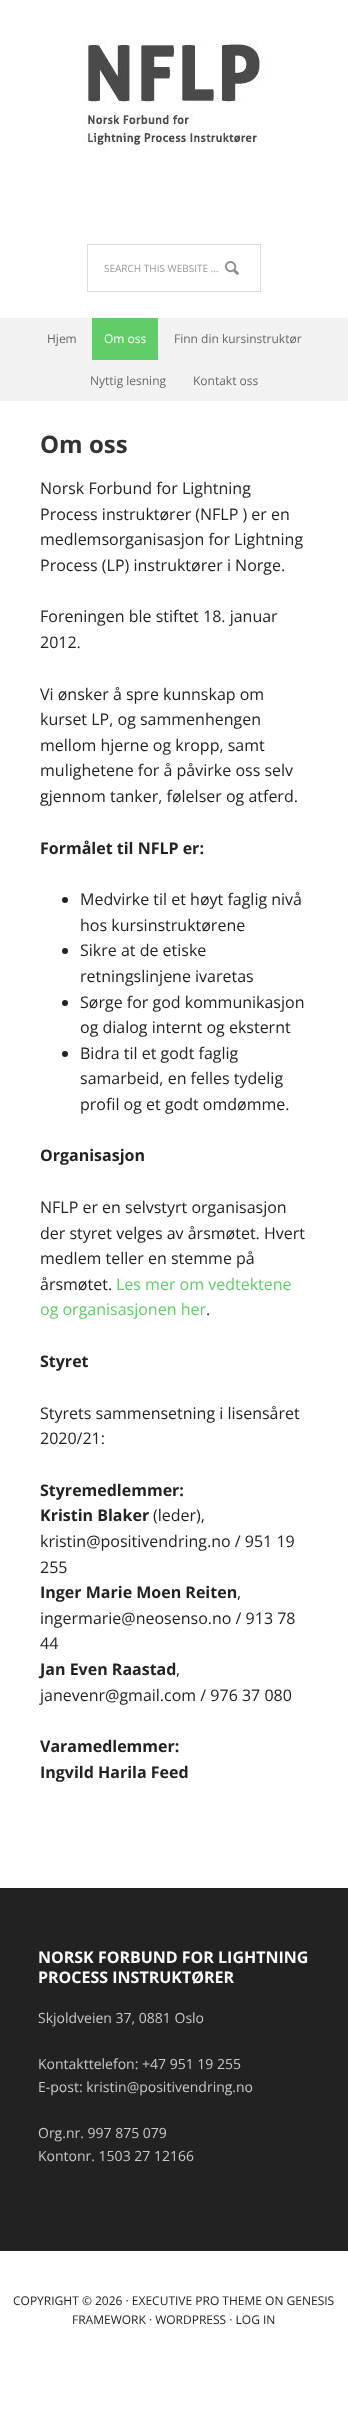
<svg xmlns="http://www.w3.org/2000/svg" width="348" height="2419">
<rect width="100%" height="100%" fill="#fff"/>
<image x="82" y="40" width="184" height="112" href="media/1.png"/>
<image x="225" y="261" width="14" height="14" href="media/2.png"/>
<rect x="87.5" y="244.5" width="173" height="47" fill="none" stroke="#ddd"/>
<text x="104" y="272" style="font-family:Open Sans;font-size:10px;fill:#999">SEARCH THIS WEBSITE …</text>
<rect y="318" width="348" height="83" fill="#f2f2f2"/>
<text x="47" y="343" style="font-family:Open Sans;font-size:12px;fill:#666">Hjem</text>
<rect x="92" y="318" width="66" height="42" fill="#60cd69"/>
<text x="104" y="343" style="font-family:Open Sans;font-size:12px;fill:#fff">Om oss</text>
<text x="174" y="343" style="font-family:Open Sans;font-size:12px;fill:#666">Finn din kursinstruktør</text>
<text x="90" y="385" style="font-family:Open Sans;font-size:12px;fill:#666">Nyttig lesning</text>
<text x="193" y="385" style="font-family:Open Sans;font-size:12px;fill:#666">Kontakt oss</text>
<text x="40" y="453" style="font-family:Open Sans;font-size:24px;font-weight:bold;fill:#333">Om oss</text>
<text x="40" y="494" style="font-family:Open Sans;font-size:16px;fill:#222">Norsk Forbund for Lightning</text>
<text x="40" y="520" style="font-family:Open Sans;font-size:16px;fill:#222">Process instruktører (NFLP ) er en</text>
<text x="40" y="545" style="font-family:Open Sans;font-size:16px;fill:#222">medlemsorganisasjon for Lightning</text>
<text x="40" y="571" style="font-family:Open Sans;font-size:16px;fill:#222">Process (LP) instruktører i Norge.</text>
<text x="40" y="622" style="font-family:Open Sans;font-size:16px;fill:#222">Foreningen ble stiftet 18. januar</text>
<text x="40" y="648" style="font-family:Open Sans;font-size:16px;fill:#222">2012.</text>
<text x="40" y="700" style="font-family:Open Sans;font-size:16px;fill:#222">Vi ønsker å spre kunnskap om</text>
<text x="40" y="725" style="font-family:Open Sans;font-size:16px;fill:#222">kurset LP, og sammenhengen</text>
<text x="40" y="751" style="font-family:Open Sans;font-size:16px;fill:#222">mellom hjerne og kropp, samt</text>
<text x="40" y="776" style="font-family:Open Sans;font-size:16px;fill:#222">mulighetene for å påvirke oss selv</text>
<text x="40" y="802" style="font-family:Open Sans;font-size:16px;fill:#222">gjennom tanker, følelser og atferd.</text>
<text x="40" y="854" style="font-family:Open Sans;font-size:16px;font-weight:bold;fill:#222">Formålet til NFLP er:</text>
<circle cx="65" cy="900" r="3" fill="#222"/>
<text x="80" y="905" style="font-family:Open Sans;font-size:16px;fill:#222">Medvirke til et høyt faglig nivå</text>
<text x="80" y="931" style="font-family:Open Sans;font-size:16px;fill:#222">hos kursinstruktørene</text>
<circle cx="65" cy="951" r="3" fill="#222"/>
<text x="80" y="956" style="font-family:Open Sans;font-size:16px;fill:#222">Sikre at de etiske</text>
<text x="80" y="982" style="font-family:Open Sans;font-size:16px;fill:#222">retningslinjene ivaretas</text>
<circle cx="65" cy="1003" r="3" fill="#222"/>
<text x="80" y="1008" style="font-family:Open Sans;font-size:16px;fill:#222">Sørge for god kommunikasjon</text>
<text x="80" y="1033" style="font-family:Open Sans;font-size:16px;fill:#222">og dialog internt og eksternt</text>
<circle cx="65" cy="1054" r="3" fill="#222"/>
<text x="80" y="1059" style="font-family:Open Sans;font-size:16px;fill:#222">Bidra til et godt faglig</text>
<text x="80" y="1084" style="font-family:Open Sans;font-size:16px;fill:#222">samarbeid, en felles tydelig</text>
<text x="80" y="1110" style="font-family:Open Sans;font-size:16px;fill:#222">profil og et godt omdømme.</text>
<text x="40" y="1161" style="font-family:Open Sans;font-size:16px;font-weight:bold;fill:#222">Organisasjon</text>
<text x="40" y="1213" style="font-family:Open Sans;font-size:16px;fill:#222">NFLP er en selvstyrt organisasjon</text>
<text x="40" y="1239" style="font-family:Open Sans;font-size:16px;fill:#222">der styret velges av årsmøtet. Hvert</text>
<text x="40" y="1264" style="font-family:Open Sans;font-size:16px;fill:#222">medlem teller en stemme på</text>
<text x="40" y="1290" style="font-family:Open Sans;font-size:16px;fill:#222">årsmøtet.</text>
<text x="116" y="1290" style="font-family:Open Sans;font-size:16px;fill:#60cd69">Les mer om vedtektene</text>
<text x="40" y="1315" style="font-family:Open Sans;font-size:16px;fill:#60cd69">og organisasjonen her</text>
<text x="206" y="1315" style="font-family:Open Sans;font-size:16px;fill:#222">.</text>
<text x="40" y="1367" style="font-family:Open Sans;font-size:16px;font-weight:bold;fill:#222">Styret</text>
<text x="40" y="1419" style="font-family:Open Sans;font-size:16px;fill:#222">Styrets sammensetning i lisensåret</text>
<text x="40" y="1444" style="font-family:Open Sans;font-size:16px;fill:#222">2020/21:</text>
<text x="40" y="1496" style="font-family:Open Sans;font-size:16px;font-weight:bold;fill:#222">Styremedlemmer:</text>
<text x="40" y="1521" style="font-family:Open Sans;font-size:16px;font-weight:bold;fill:#222">Kristin Blaker</text>
<text x="153" y="1521" style="font-family:Open Sans;font-size:16px;fill:#222">(leder),</text>
<text x="40" y="1547" style="font-family:Open Sans;font-size:16px;fill:#222">kristin@positivendring.no / 951 19</text>
<text x="40" y="1573" style="font-family:Open Sans;font-size:16px;fill:#222">255</text>
<text x="40" y="1598" style="font-family:Open Sans;font-size:16px;font-weight:bold;fill:#222">Inger Marie Moen Reiten</text>
<text x="237" y="1598" style="font-family:Open Sans;font-size:16px;fill:#222">,</text>
<text x="40" y="1624" style="font-family:Open Sans;font-size:16px;fill:#222">ingermarie@neosenso.no / 913 78</text>
<text x="40" y="1649" style="font-family:Open Sans;font-size:16px;fill:#222">44</text>
<text x="40" y="1675" style="font-family:Open Sans;font-size:16px;font-weight:bold;fill:#222">Jan Even Raastad</text>
<text x="176" y="1675" style="font-family:Open Sans;font-size:16px;fill:#222">,</text>
<text x="40" y="1701" style="font-family:Open Sans;font-size:16px;fill:#222">janevenr@gmail.com / 976 37 080</text>
<text x="40" y="1752" style="font-family:Open Sans;font-size:16px;font-weight:bold;fill:#222">Varamedlemmer:</text>
<text x="40" y="1778" style="font-family:Open Sans;font-size:16px;font-weight:bold;fill:#222">Ingvild Harila Feed</text>
<rect y="1888" width="348" height="363" fill="#222"/>
<text x="38" y="1963" style="font-family:Open Sans;font-size:16px;font-weight:bold;fill:#fff">NORSK FORBUND FOR LIGHTNING</text>
<text x="38" y="1983" style="font-family:Open Sans;font-size:16px;font-weight:bold;fill:#fff">PROCESS INSTRUKTØRER</text>
<text x="38" y="2023" style="font-family:Open Sans;font-size:14px;fill:#c8c8c8">Skjoldveien 37, 0881 Oslo</text>
<text x="38" y="2069" style="font-family:Open Sans;font-size:14px;fill:#c8c8c8">Kontakttelefon: +47 951 19 255</text>
<text x="38" y="2092" style="font-family:Open Sans;font-size:14px;fill:#c8c8c8">E-post: kristin@positivendring.no</text>
<text x="38" y="2138" style="font-family:Open Sans;font-size:14px;fill:#c8c8c8">Org.nr. 997 875 079</text>
<text x="38" y="2161" style="font-family:Open Sans;font-size:14px;fill:#c8c8c8">Kontonr. 1503 27 12166</text>
<text x="13" y="2305" style="font-family:Open Sans;font-size:12px;fill:#222">COPYRIGHT © 2026 · EXECUTIVE PRO THEME ON GENESIS</text>
<text x="72" y="2324" style="font-family:Open Sans;font-size:12px;fill:#222">FRAMEWORK · WORDPRESS · LOG IN</text>
</svg>
